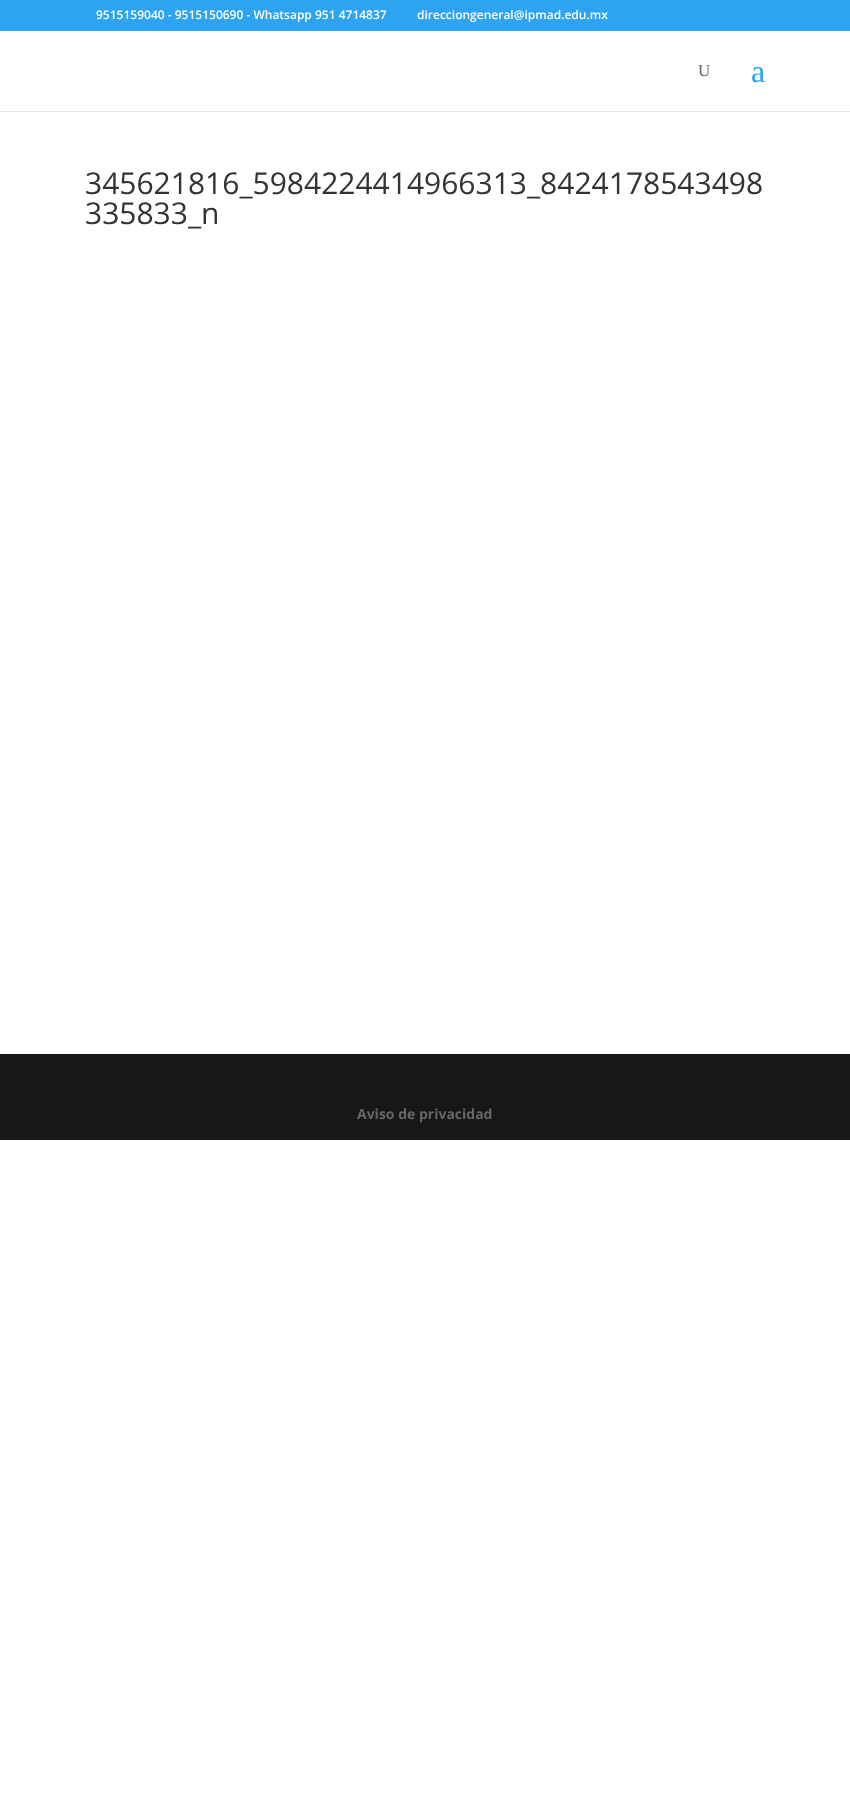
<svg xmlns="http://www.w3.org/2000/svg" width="850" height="1798">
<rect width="100%" height="100%" fill="#fff"/>
<rect width="850" height="31" fill="#2ea3f2"/>
<text x="96" y="19" style="font-family:Open Sans;font-size:12px;font-weight:600;fill:#fff">9515159040 - 9515150690 - Whatsapp 951 4714837</text>
<text x="417" y="19" style="font-family:Open Sans;font-size:12px;font-weight:600;fill:#fff">direcciongeneral@ipmad.edu.mx</text>
<rect y="111" width="850" height="1" fill="#e6e6e6"/>
<text x="698" y="76" style="font-family:Liberation Serif;font-size:17px;fill:#666">U</text>
<text x="751" y="82" style="font-family:Liberation Serif;font-size:32px;fill:#2ea3f2">a</text>
<text x="85" y="194" style="font-family:Open Sans;font-size:30px;fill:#333">345621816_5984224414966313_8424178543498</text>
<text x="85" y="224" style="font-family:Open Sans;font-size:30px;fill:#333">335833_n</text>
<rect y="1054" width="850" height="86" fill="#171717"/>
<text x="357" y="1119" style="font-family:Open Sans;font-size:14px;font-weight:bold;fill:#666">Aviso de privacidad</text>
</svg>
